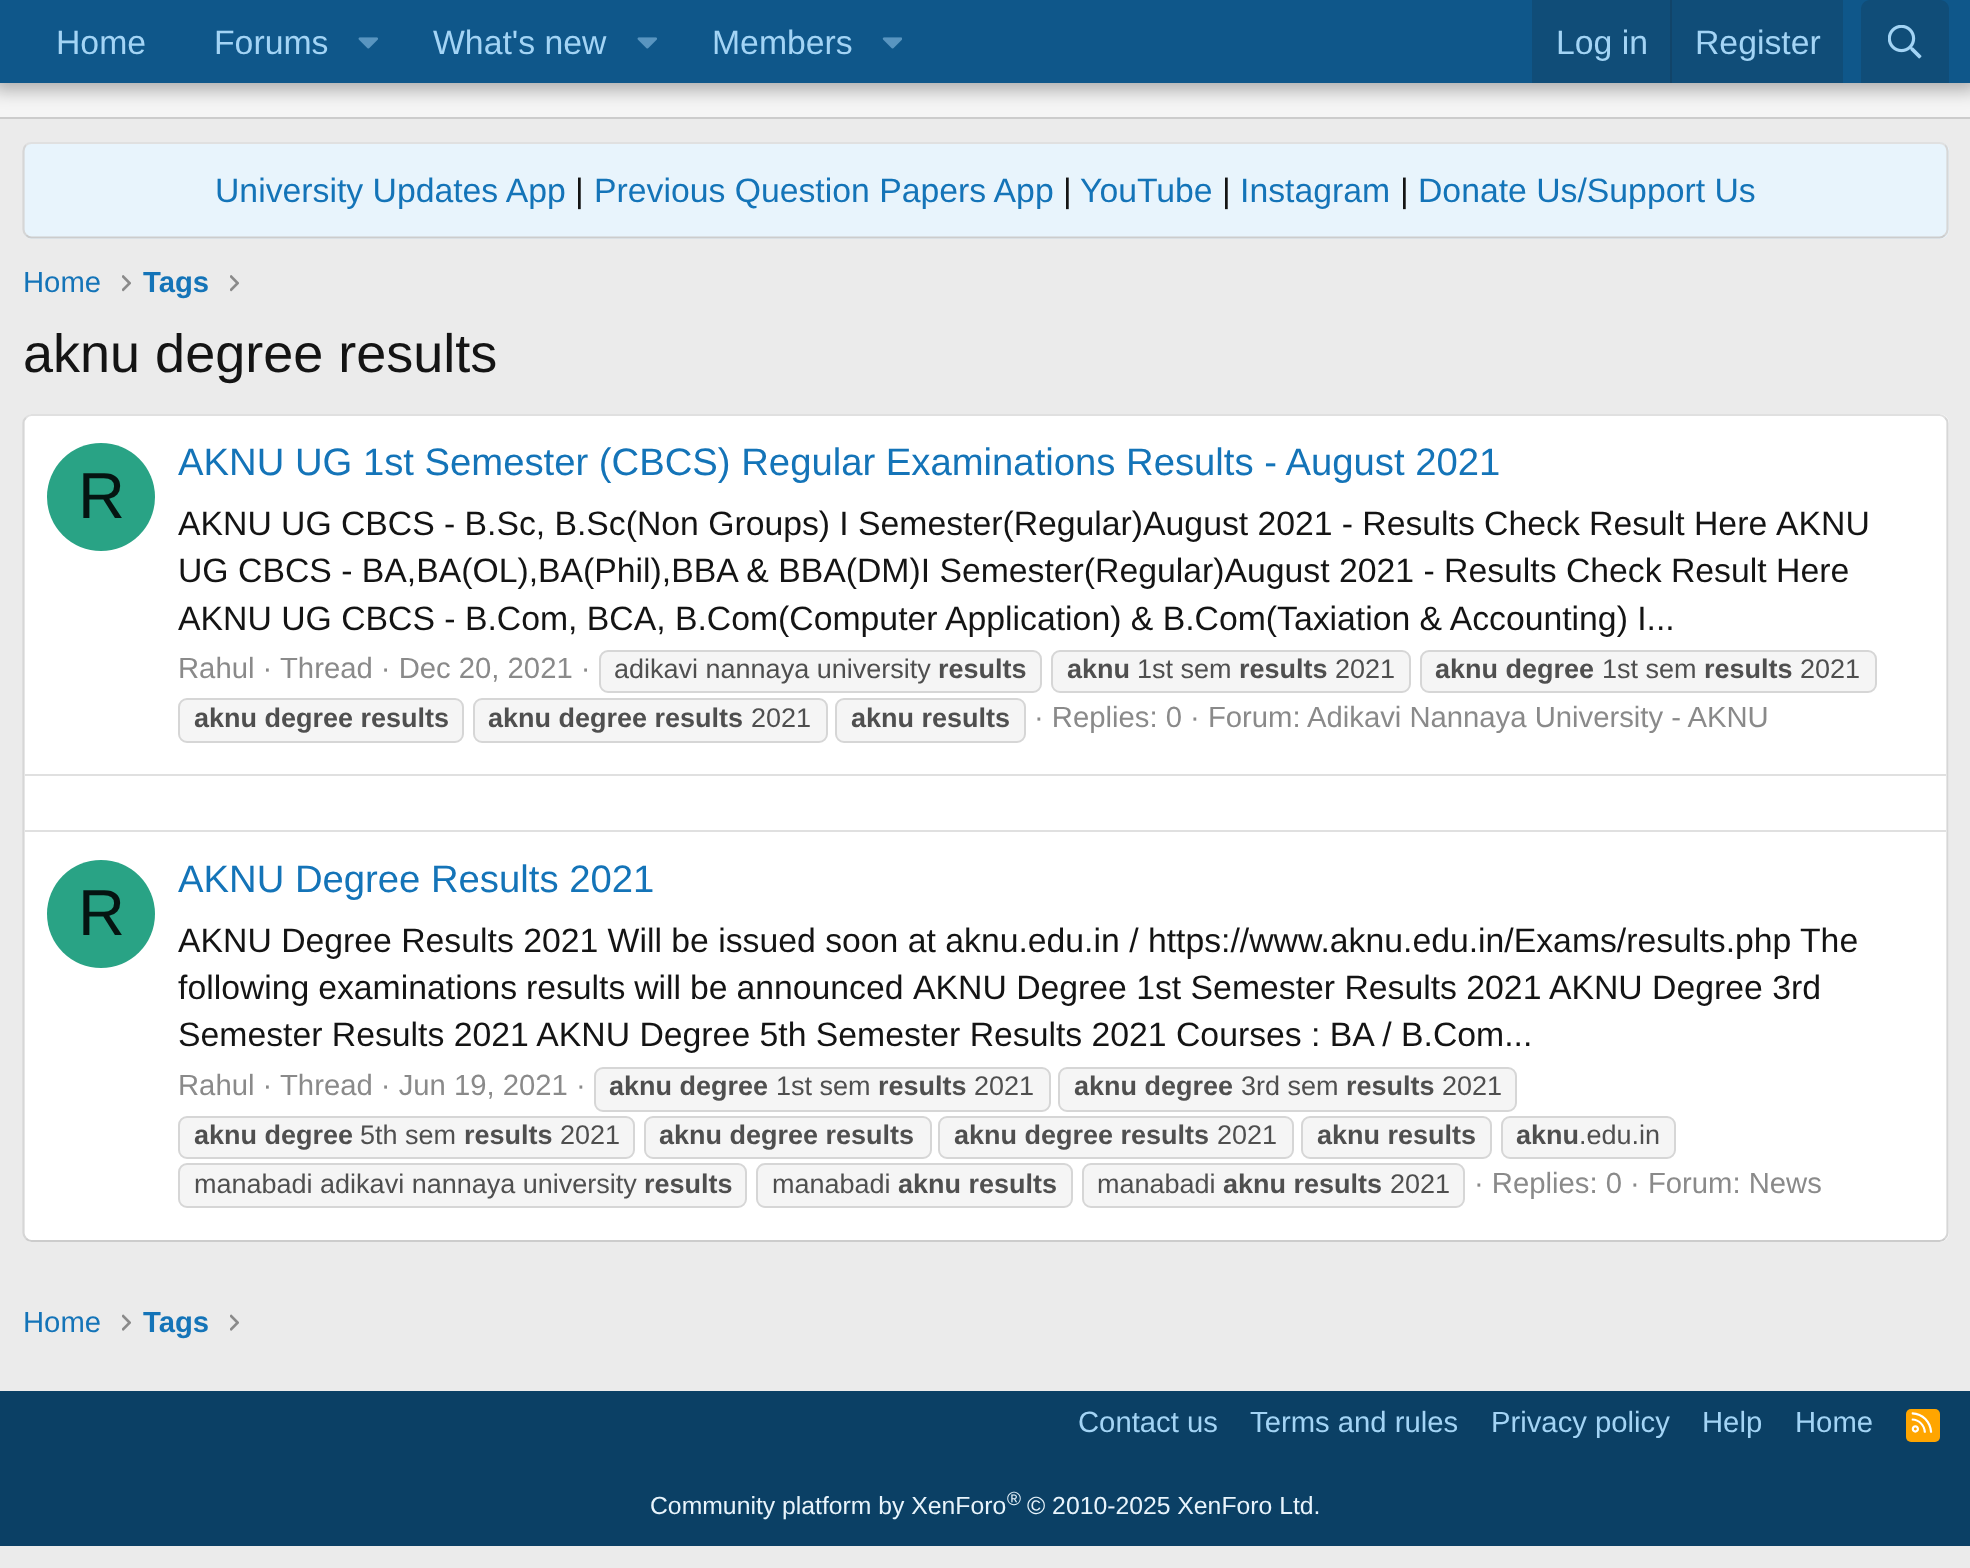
<svg xmlns="http://www.w3.org/2000/svg" width="1970" height="1568">
<rect width="100%" height="100%" fill="#ebebeb"/>
<rect y="83" width="1970" height="34" fill="#f5f5f5"/>
<rect y="117" width="1970" height="2" fill="#ccc"/>
<rect x="-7" y="-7" width="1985" height="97" fill="#0000004d" filter="blur(9px)"/>
<rect width="1970" height="83" fill="#0f578a"/>
<text x="56" y="54" style="font-family:Liberation Sans;font-size:33.75px;fill:#a3d4f5">Home</text>
<text x="214" y="54" style="font-family:Liberation Sans;font-size:33.75px;fill:#a3d4f5">Forums</text>
<image x="358" y="37" width="20" height="12" href="media/1.png"/>
<text x="433" y="54" style="font-family:Liberation Sans;font-size:33.75px;fill:#a3d4f5">What's new</text>
<image x="637" y="37" width="20" height="12" href="media/1.png"/>
<text x="712" y="54" style="font-family:Liberation Sans;font-size:33.75px;fill:#a3d4f5">Members</text>
<image x="882" y="37" width="20" height="12" href="media/2.png"/>
<rect x="1532" width="311" height="83" fill="#104d78"/>
<text x="1556" y="54" style="font-family:Liberation Sans;font-size:33.75px;fill:#a3d4f5">Log in</text>
<rect x="1670" width="2" height="83" fill="#114469"/>
<text x="1695" y="54" style="font-family:Liberation Sans;font-size:33.75px;fill:#a3d4f5">Register</text>
<path d="M1870 0h70c5 0 9 4 9 9v74h-88v-74c0-5 4-9 9-9z" fill="#104d78"/>
<image x="1888" y="25" width="34" height="34" href="media/3.png"/>
<rect x="23" y="142" width="1926" height="97" rx="9" fill="#e8f4fc"/>
<path d="M26 145c1.5-1.5 3.5-2 5.5-2h1908c2 0 4 .5 5.5 2" fill="none" stroke="#e0e0e0" stroke-width="2.2"/>
<path d="M1945 145c1.5 1.5 2.5 3.5 2.5 6v78.5c0 2-1 4-2.5 5.5" fill="none" stroke="#d6d6d6" stroke-width="2.2"/>
<path d="M1945 235c-1.5 1.5-3.5 2.5-5.5 2.5h-1908c-2 0-4-1-5.5-2.5" fill="none" stroke="#ccc" stroke-width="2.2"/>
<path d="M26 235c-1.5-1.5-2.5-3.5-2.5-5.5v-78.5c0-2.5 1-4.5 2.5-6" fill="none" stroke="#d6d6d6" stroke-width="2.2"/>
<text x="215" y="202" style="font-family:Liberation Sans;font-size:33.75px;fill:#1474b8">University Updates App</text>
<text x="575" y="202" style="font-family:Liberation Sans;font-size:33.75px;fill:#141414">|</text>
<text x="594" y="202" style="font-family:Liberation Sans;font-size:33.75px;fill:#1474b8">Previous Question Papers App</text>
<text x="1063" y="202" style="font-family:Liberation Sans;font-size:33.75px;fill:#141414">|</text>
<text x="1080" y="202" style="font-family:Liberation Sans;font-size:33.75px;fill:#1474b8">YouTube</text>
<text x="1222" y="202" style="font-family:Liberation Sans;font-size:33.75px;fill:#141414">|</text>
<text x="1240" y="202" style="font-family:Liberation Sans;font-size:33.75px;fill:#1474b8">Instagram</text>
<text x="1400" y="202" style="font-family:Liberation Sans;font-size:33.75px;fill:#141414">|</text>
<text x="1418" y="202" style="font-family:Liberation Sans;font-size:33.75px;fill:#1474b8">Donate Us/Support Us</text>
<text x="23" y="292" style="font-family:Liberation Sans;font-size:29.25px;fill:#1474b8">Home</text>
<image x="122" y="275" width="9" height="17" href="media/4.png"/>
<text x="143" y="292" style="font-family:Liberation Sans;font-size:29.25px;font-weight:bold;fill:#1474b8">Tags</text>
<image x="230" y="275" width="9" height="17" href="media/4.png"/>
<text x="23" y="372" style="font-family:Liberation Sans;font-size:54px;fill:#141414">aknu degree results</text>
<rect x="23" y="414" width="1926" height="828" rx="9" fill="#fff"/>
<path d="M26 417.5c1.5-1.5 3.5-2.5 5.5-2.5h1908c2 0 4 1 5.5 2.5" fill="none" stroke="#e0e0e0" stroke-width="2.2"/>
<path d="M1945 417.5c1.5 1.5 2.5 3.5 2.5 5.5v810c0 2-1 4-2.5 5.5" fill="none" stroke="#d6d6d6" stroke-width="2.2"/>
<path d="M1945 1238.5c-1.5 1.5-3.5 2.5-5.5 2.5h-1908c-2 0-4-1-5.5-2.5" fill="none" stroke="#ccc" stroke-width="2.2"/>
<path d="M26 1238.5c-1.5-1.5-2.5-3.5-2.5-5.5v-810c0-2 1-4 2.5-5.5" fill="none" stroke="#d6d6d6" stroke-width="2.2"/>
<circle cx="101" cy="497" r="54" fill="#29a385"/>
<text x="78" y="518" style="font-family:Liberation Sans;font-size:65px;fill:#051411">R</text>
<text x="178" y="475" style="font-family:Liberation Sans;font-size:38.25px;fill:#1474b8">AKNU UG 1st Semester (CBCS) Regular Examinations Results - August 2021</text>
<text x="178" y="535" word-spacing="-0.1" style="font-family:Liberation Sans;font-size:33.75px;fill:#141414">AKNU UG CBCS - B.Sc, B.Sc(Non Groups) I Semester(Regular)August 2021 - Results Check Result Here</text>
<text x="1776" y="535" style="font-family:Liberation Sans;font-size:33.75px;fill:#141414">AKNU</text>
<text x="178" y="582" style="font-family:Liberation Sans;font-size:33.75px;fill:#141414">UG CBCS - BA,BA(OL),BA(Phil),BBA &amp; BBA(DM)I Semester(Regular)August 2021 - Results Check Result Here</text>
<text x="178" y="630" style="font-family:Liberation Sans;font-size:33.75px;fill:#141414">AKNU UG CBCS - B.Com, BCA, B.Com(Computer Application) &amp; B.Com(Taxiation &amp; Accounting) I...</text>
<text x="178" y="678" style="font-family:Liberation Sans;font-size:29.25px;fill:#8a8a8a">Rahul ·</text>
<text x="280" y="678" style="font-family:Liberation Sans;font-size:29.25px;fill:#8a8a8a">Thread · Dec 20, 2021 ·</text>
<rect x="600" y="651" width="441" height="41" rx="8" fill="#f5f5f5" stroke="#d6d6d6" stroke-width="2"/>
<text x="614" y="678" style="font-family:Liberation Sans;font-size:27px;fill:#4f4f4f">adikavi nannaya university</text>
<text x="938" y="678" style="font-family:Liberation Sans;font-size:27px;font-weight:bold;fill:#4f4f4f">results</text>
<rect x="1052" y="651" width="358" height="41" rx="8" fill="#f5f5f5" stroke="#d6d6d6" stroke-width="2"/>
<text x="1067" y="678" style="font-family:Liberation Sans;font-size:27px;font-weight:bold;fill:#4f4f4f">aknu</text>
<text x="1137" y="678" style="font-family:Liberation Sans;font-size:27px;fill:#4f4f4f">1st sem</text>
<text x="1239" y="678" style="font-family:Liberation Sans;font-size:27px;font-weight:bold;fill:#4f4f4f">results</text>
<text x="1335" y="678" style="font-family:Liberation Sans;font-size:27px;fill:#4f4f4f">2021</text>
<rect x="1421" y="651" width="455" height="41" rx="8" fill="#f5f5f5" stroke="#d6d6d6" stroke-width="2"/>
<text x="1435" y="678" style="font-family:Liberation Sans;font-size:27px;font-weight:bold;fill:#4f4f4f">aknu degree</text>
<text x="1602" y="678" style="font-family:Liberation Sans;font-size:27px;fill:#4f4f4f">1st sem</text>
<text x="1704" y="678" style="font-family:Liberation Sans;font-size:27px;font-weight:bold;fill:#4f4f4f">results</text>
<text x="1800" y="678" style="font-family:Liberation Sans;font-size:27px;fill:#4f4f4f">2021</text>
<rect x="179" y="699" width="284" height="43" rx="8" fill="#f5f5f5" stroke="#d6d6d6" stroke-width="2"/>
<text x="194" y="727" style="font-family:Liberation Sans;font-size:27px;font-weight:bold;fill:#4f4f4f">aknu degree results</text>
<rect x="474" y="699" width="353" height="43" rx="8" fill="#f5f5f5" stroke="#d6d6d6" stroke-width="2"/>
<text x="488" y="727" style="font-family:Liberation Sans;font-size:27px;font-weight:bold;fill:#4f4f4f">aknu degree results</text>
<text x="751" y="727" style="font-family:Liberation Sans;font-size:27px;fill:#4f4f4f">2021</text>
<rect x="836" y="699" width="189" height="43" rx="8" fill="#f5f5f5" stroke="#d6d6d6" stroke-width="2"/>
<text x="851" y="727" style="font-family:Liberation Sans;font-size:27px;font-weight:bold;fill:#4f4f4f">aknu results</text>
<text x="1034" y="727" style="font-family:Liberation Sans;font-size:29.25px;fill:#8a8a8a">· Replies: 0 · Forum:</text>
<text x="1307" y="727" style="font-family:Liberation Sans;font-size:29.25px;fill:#8a8a8a">Adikavi Nannaya University - AKNU</text>
<rect x="25" y="774" width="1921" height="2" fill="#e0e0e0"/>
<rect x="25" y="830" width="1921" height="2" fill="#e0e0e0"/>
<circle cx="101" cy="914" r="54" fill="#29a385"/>
<text x="78" y="935" style="font-family:Liberation Sans;font-size:65px;fill:#051411">R</text>
<text x="178" y="892" style="font-family:Liberation Sans;font-size:38.25px;fill:#1474b8">AKNU Degree Results 2021</text>
<text x="178" y="952" style="font-family:Liberation Sans;font-size:33.75px;fill:#141414">AKNU Degree Results 2021 Will be issued soon at aknu.edu.in / https://www.aknu.edu.in/Exams/results.php</text>
<text x="1800" y="952" style="font-family:Liberation Sans;font-size:33.75px;fill:#141414">The</text>
<text x="178" y="999" word-spacing="-0.5" style="font-family:Liberation Sans;font-size:33.75px;fill:#141414">following examinations results will be announced</text>
<text x="913" y="999" style="font-family:Liberation Sans;font-size:33.75px;fill:#141414">AKNU Degree 1st Semester Results 2021 AKNU Degree 3rd</text>
<text x="178" y="1046" style="font-family:Liberation Sans;font-size:33.75px;fill:#141414">Semester Results 2021 AKNU Degree 5th Semester Results 2021 Courses : BA / B.Com...</text>
<text x="178" y="1095" style="font-family:Liberation Sans;font-size:29.25px;fill:#8a8a8a">Rahul ·</text>
<text x="280" y="1095" style="font-family:Liberation Sans;font-size:29.25px;fill:#8a8a8a">Thread · Jun 19, 2021 ·</text>
<rect x="595" y="1068" width="455" height="43" rx="8" fill="#f5f5f5" stroke="#d6d6d6" stroke-width="2"/>
<text x="609" y="1095" style="font-family:Liberation Sans;font-size:27px;font-weight:bold;fill:#4f4f4f">aknu degree</text>
<text x="776" y="1095" style="font-family:Liberation Sans;font-size:27px;fill:#4f4f4f">1st sem</text>
<text x="878" y="1095" style="font-family:Liberation Sans;font-size:27px;font-weight:bold;fill:#4f4f4f">results</text>
<text x="974" y="1095" style="font-family:Liberation Sans;font-size:27px;fill:#4f4f4f">2021</text>
<rect x="1059" y="1068" width="457" height="43" rx="8" fill="#f5f5f5" stroke="#d6d6d6" stroke-width="2"/>
<text x="1074" y="1095" style="font-family:Liberation Sans;font-size:27px;font-weight:bold;fill:#4f4f4f">aknu degree</text>
<text x="1241" y="1095" style="font-family:Liberation Sans;font-size:27px;fill:#4f4f4f">3rd sem</text>
<text x="1346" y="1095" style="font-family:Liberation Sans;font-size:27px;font-weight:bold;fill:#4f4f4f">results</text>
<text x="1442" y="1095" style="font-family:Liberation Sans;font-size:27px;fill:#4f4f4f">2021</text>
<rect x="179" y="1117" width="455" height="41" rx="8" fill="#f5f5f5" stroke="#d6d6d6" stroke-width="2"/>
<text x="194" y="1144" style="font-family:Liberation Sans;font-size:27px;font-weight:bold;fill:#4f4f4f">aknu degree</text>
<text x="360" y="1144" style="font-family:Liberation Sans;font-size:27px;fill:#4f4f4f">5th sem</text>
<text x="464" y="1144" style="font-family:Liberation Sans;font-size:27px;font-weight:bold;fill:#4f4f4f">results</text>
<text x="560" y="1144" style="font-family:Liberation Sans;font-size:27px;fill:#4f4f4f">2021</text>
<rect x="645" y="1117" width="286" height="41" rx="8" fill="#f5f5f5" stroke="#d6d6d6" stroke-width="2"/>
<text x="659" y="1144" style="font-family:Liberation Sans;font-size:27px;font-weight:bold;fill:#4f4f4f">aknu degree results</text>
<rect x="939" y="1117" width="354" height="41" rx="8" fill="#f5f5f5" stroke="#d6d6d6" stroke-width="2"/>
<text x="954" y="1144" style="font-family:Liberation Sans;font-size:27px;font-weight:bold;fill:#4f4f4f">aknu degree results</text>
<text x="1217" y="1144" style="font-family:Liberation Sans;font-size:27px;fill:#4f4f4f">2021</text>
<rect x="1302" y="1117" width="189" height="41" rx="8" fill="#f5f5f5" stroke="#d6d6d6" stroke-width="2"/>
<text x="1317" y="1144" style="font-family:Liberation Sans;font-size:27px;font-weight:bold;fill:#4f4f4f">aknu results</text>
<rect x="1502" y="1117" width="173" height="41" rx="8" fill="#f5f5f5" stroke="#d6d6d6" stroke-width="2"/>
<text x="1516" y="1144" style="font-family:Liberation Sans;font-size:27px;font-weight:bold;fill:#4f4f4f">aknu</text>
<text x="1579" y="1144" style="font-family:Liberation Sans;font-size:27px;fill:#4f4f4f">.edu.in</text>
<rect x="179" y="1164" width="567" height="43" rx="8" fill="#f5f5f5" stroke="#d6d6d6" stroke-width="2"/>
<text x="194" y="1193" style="font-family:Liberation Sans;font-size:27px;fill:#4f4f4f">manabadi adikavi nannaya university</text>
<text x="644" y="1193" style="font-family:Liberation Sans;font-size:27px;font-weight:bold;fill:#4f4f4f">results</text>
<rect x="757" y="1164" width="315" height="43" rx="8" fill="#f5f5f5" stroke="#d6d6d6" stroke-width="2"/>
<text x="772" y="1193" style="font-family:Liberation Sans;font-size:27px;fill:#4f4f4f">manabadi</text>
<text x="898" y="1193" style="font-family:Liberation Sans;font-size:27px;font-weight:bold;fill:#4f4f4f">aknu results</text>
<rect x="1083" y="1164" width="381" height="43" rx="8" fill="#f5f5f5" stroke="#d6d6d6" stroke-width="2"/>
<text x="1097" y="1193" style="font-family:Liberation Sans;font-size:27px;fill:#4f4f4f">manabadi</text>
<text x="1223" y="1193" style="font-family:Liberation Sans;font-size:27px;font-weight:bold;fill:#4f4f4f">aknu results</text>
<text x="1390" y="1193" style="font-family:Liberation Sans;font-size:27px;fill:#4f4f4f">2021</text>
<text x="1474" y="1193" style="font-family:Liberation Sans;font-size:29.25px;fill:#8a8a8a">· Replies: 0 · Forum: News</text>
<text x="23" y="1332" style="font-family:Liberation Sans;font-size:29.25px;fill:#1474b8">Home</text>
<image x="122" y="1314" width="9" height="17" href="media/5.png"/>
<text x="143" y="1332" style="font-family:Liberation Sans;font-size:29.25px;font-weight:bold;fill:#1474b8">Tags</text>
<image x="230" y="1314" width="9" height="17" href="media/5.png"/>
<rect y="1391" width="1970" height="155" fill="#0b4065"/>
<text x="1078" y="1432" style="font-family:Liberation Sans;font-size:29.25px;fill:#a3d4f5">Contact us</text>
<text x="1250" y="1432" style="font-family:Liberation Sans;font-size:29.25px;fill:#a3d4f5">Terms and rules</text>
<text x="1491" y="1432" style="font-family:Liberation Sans;font-size:29.25px;fill:#a3d4f5">Privacy policy</text>
<text x="1702" y="1432" style="font-family:Liberation Sans;font-size:29.25px;fill:#a3d4f5">Help</text>
<text x="1795" y="1432" style="font-family:Liberation Sans;font-size:29.25px;fill:#a3d4f5">Home</text>
<rect x="1906" y="1409" width="34" height="33" rx="5" fill="#ffa500"/>
<image x="1911" y="1412" width="22" height="21" href="media/6.png"/>
<text x="650" y="1514" style="font-family:Liberation Sans;font-size:24.75px;fill:#e8f4fc">Community platform by XenForo</text>
<text x="1007" y="1505" style="font-family:Liberation Sans;font-size:19px;fill:#e8f4fc">®</text>
<text x="1027" y="1514" style="font-family:Liberation Sans;font-size:24.75px;fill:#e8f4fc">© 2010-2025 XenForo Ltd.</text>
</svg>
